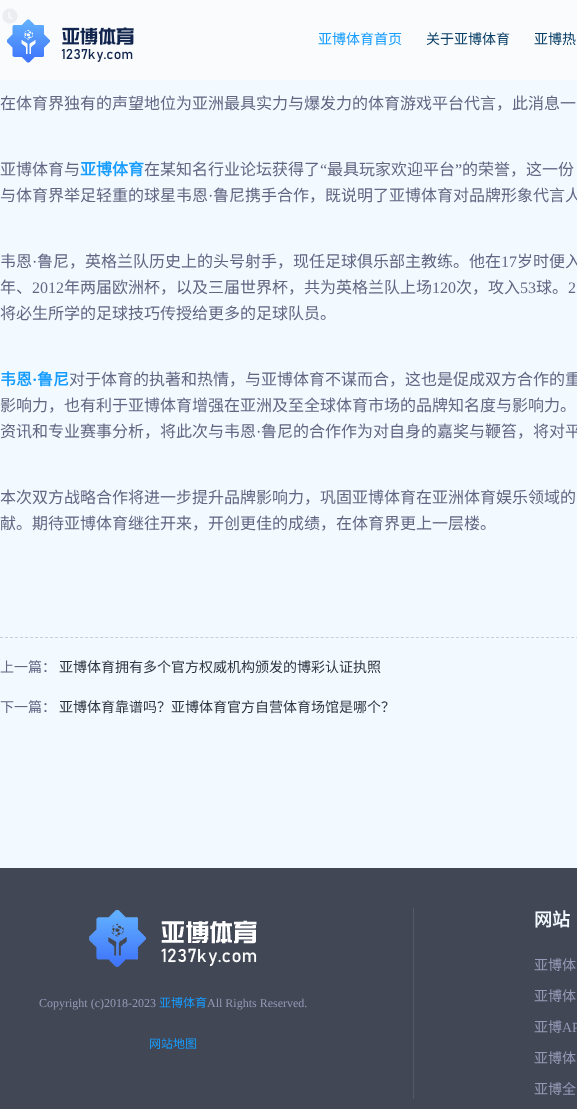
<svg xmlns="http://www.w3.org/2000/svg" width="577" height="1109">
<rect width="100%" height="100%" fill="#f3faff"/>
<image x="2" y="8" width="16" height="16" href="media/2.png"/>
<rect width="577" height="80" fill="#fbfbfbb3"/>
<image x="7" y="19" width="127" height="44" href="media/1.png"/>
<text x="318" y="44" style="font-family:Noto Sans CJK SC;font-size:14px;fill:#179cff">亚博体育首页</text>
<text x="426" y="44" style="font-family:Noto Sans CJK SC;font-size:14px;fill:#093e66">关于亚博体育</text>
<text x="534" y="44" style="font-family:Noto Sans CJK SC;font-size:14px;fill:#093e66">亚博热</text>
<text x="0" y="109" style="font-family:Noto Sans CJK SC;font-size:16px;fill:#616783">在体育界独有的声望地位为亚洲最具实力与爆发力的体育游戏平台代言，此消息一</text>
<text x="0" y="175" style="font-family:Noto Sans CJK SC;font-size:16px;fill:#616783">亚博体育与</text>
<text x="80" y="175" style="font-family:Noto Sans CJK SC;font-size:16px;font-weight:bold;fill:#179cff">亚博体育</text>
<text x="144" y="175" style="font-family:Noto Sans CJK SC;font-size:16px;fill:#616783">在某知名行业论坛获得了</text>
<text x="320" y="175" style="font-family:Liberation Serif;font-size:16px;fill:#616783">“</text>
<text x="327" y="175" style="font-family:Noto Sans CJK SC;font-size:16px;fill:#616783">最具玩家欢迎平台</text>
<text x="455" y="175" style="font-family:Liberation Serif;font-size:16px;fill:#616783">”</text>
<text x="462" y="175" style="font-family:Noto Sans CJK SC;font-size:16px;fill:#616783">的荣誉，这一份</text>
<text x="0" y="201" style="font-family:Noto Sans CJK SC;font-size:16px;fill:#616783">与体育界举足轻重的球星韦恩</text>
<text x="208" y="201" style="font-family:Liberation Serif;font-size:16px;fill:#616783">·</text>
<text x="213" y="201" style="font-family:Noto Sans CJK SC;font-size:16px;fill:#616783">鲁尼携手合作，既说明了亚博体育对品牌形象代言人</text>
<text x="0" y="267" style="font-family:Noto Sans CJK SC;font-size:16px;fill:#616783">韦恩</text>
<text x="32" y="267" style="font-family:Liberation Serif;font-size:16px;fill:#616783">·</text>
<text x="37" y="267" style="font-family:Noto Sans CJK SC;font-size:16px;fill:#616783">鲁尼，英格兰队历史上的头号射手，现任足球俱乐部主教练。他在</text>
<text x="501" y="267" style="font-family:Liberation Serif;font-size:16px;fill:#616783">17</text>
<text x="517" y="267" style="font-family:Noto Sans CJK SC;font-size:16px;fill:#616783">岁时便入</text>
<text x="0" y="293" style="font-family:Noto Sans CJK SC;font-size:16px;fill:#616783">年、</text>
<text x="32" y="293" style="font-family:Liberation Serif;font-size:16px;fill:#616783">2012</text>
<text x="64" y="293" style="font-family:Noto Sans CJK SC;font-size:16px;fill:#616783">年两届欧洲杯，以及三届世界杯，共为英格兰队上场</text>
<text x="432" y="293" style="font-family:Liberation Serif;font-size:16px;fill:#616783">120</text>
<text x="456" y="293" style="font-family:Noto Sans CJK SC;font-size:16px;fill:#616783">次，攻入</text>
<text x="520" y="293" style="font-family:Liberation Serif;font-size:16px;fill:#616783">53</text>
<text x="536" y="293" style="font-family:Noto Sans CJK SC;font-size:16px;fill:#616783">球。</text>
<text x="568" y="293" style="font-family:Liberation Serif;font-size:16px;fill:#616783">2</text>
<text x="0" y="319" style="font-family:Noto Sans CJK SC;font-size:16px;fill:#616783">将必生所学的足球技巧传授给更多的足球队员。</text>
<text x="0" y="385" style="font-family:Noto Sans CJK SC;font-size:16px;font-weight:bold;fill:#179cff">韦恩</text>
<text x="32" y="385" style="font-family:Liberation Serif;font-size:16px;font-weight:bold;fill:#179cff">·</text>
<text x="37" y="385" style="font-family:Noto Sans CJK SC;font-size:16px;font-weight:bold;fill:#179cff">鲁尼</text>
<text x="69" y="385" style="font-family:Noto Sans CJK SC;font-size:16px;fill:#616783">对于体育的执著和热情，与亚博体育不谋而合，这也是促成双方合作的重</text>
<text x="0" y="411" style="font-family:Noto Sans CJK SC;font-size:16px;fill:#616783">影响力，也有利于亚博体育增强在亚洲及至全球体育市场的品牌知名度与影响力。</text>
<text x="0" y="437" style="font-family:Noto Sans CJK SC;font-size:16px;fill:#616783">资讯和专业赛事分析，将此次与韦恩</text>
<text x="256" y="437" style="font-family:Liberation Serif;font-size:16px;fill:#616783">·</text>
<text x="261" y="437" style="font-family:Noto Sans CJK SC;font-size:16px;fill:#616783">鲁尼的合作作为对自身的嘉奖与鞭笞，将对平</text>
<text x="0" y="503" style="font-family:Noto Sans CJK SC;font-size:16px;fill:#616783">本次双方战略合作将进一步提升品牌影响力，巩固亚博体育在亚洲体育娱乐领域的</text>
<text x="0" y="529" style="font-family:Noto Sans CJK SC;font-size:16px;fill:#616783">献。期待亚博体育继往开来，开创更佳的成绩，在体育界更上一层楼。</text>
<path d="M0 637.5h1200" fill="none" stroke="#c9cddb" stroke-dasharray="3 2.01"/>
<text x="0" y="672" style="font-family:Noto Sans CJK SC;font-size:14px;fill:#616783">上一篇：</text>
<text x="59" y="672" style="font-family:Noto Sans CJK SC;font-size:14px;fill:#303442">亚博体育拥有多个官方权威机构颁发的博彩认证执照</text>
<text x="0" y="712" style="font-family:Noto Sans CJK SC;font-size:14px;fill:#616783">下一篇：</text>
<text x="59" y="712" style="font-family:Noto Sans CJK SC;font-size:14px;fill:#303442">亚博体育靠谱吗？亚博体育官方自营体育场馆是哪个？</text>
<rect y="868" width="577" height="241" fill="#414755"/>
<rect x="413" y="908" width="1" height="191" fill="#545966"/>
<image x="89" y="910" width="168" height="57" href="media/3.png"/>
<text x="39" y="1007" style="font-family:Liberation Serif;font-size:12px;fill:#949ab6">Copyright (c)2018-2023</text>
<text x="159" y="1007" style="font-family:Noto Sans CJK SC;font-size:12px;fill:#179cff">亚博体育</text>
<text x="207" y="1007" style="font-family:Liberation Serif;font-size:12px;fill:#949ab6">All Rights Reserved.</text>
<text x="149" y="1048" style="font-family:Noto Sans CJK SC;font-size:12px;fill:#179cff">网站地图</text>
<text x="534" y="926" style="font-family:Noto Sans CJK SC;font-size:18px;font-weight:bold;fill:#f2f9ff">网站</text>
<text x="534" y="970" style="font-family:Noto Sans CJK SC;font-size:14px;fill:#949ab6">亚博体</text>
<text x="534" y="1001" style="font-family:Noto Sans CJK SC;font-size:14px;fill:#949ab6">亚博体</text>
<text x="534" y="1032" style="font-family:Noto Sans CJK SC;font-size:14px;fill:#949ab6">亚博</text>
<text x="562" y="1032" style="font-family:Liberation Serif;font-size:14px;fill:#949ab6">AP</text>
<text x="534" y="1063" style="font-family:Noto Sans CJK SC;font-size:14px;fill:#949ab6">亚博体</text>
<text x="534" y="1094" style="font-family:Noto Sans CJK SC;font-size:14px;fill:#949ab6">亚博全</text>
</svg>
